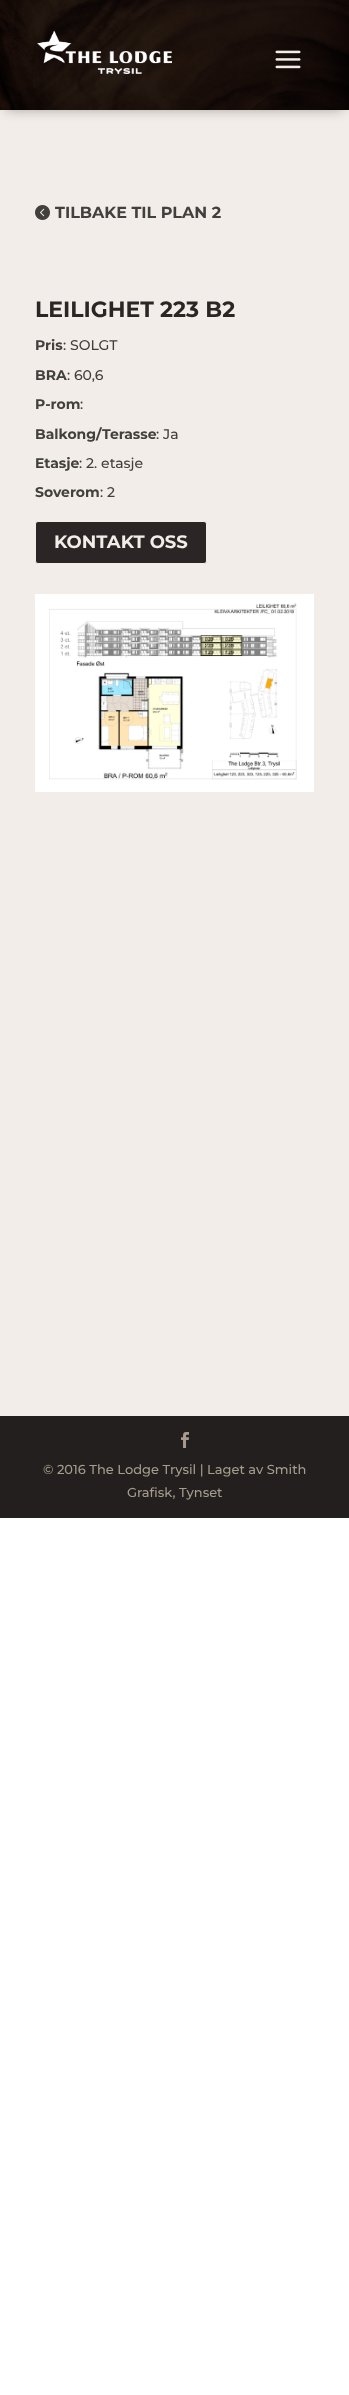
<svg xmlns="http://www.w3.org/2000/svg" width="349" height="2395">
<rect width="100%" height="100%" fill="#fff"/>
<rect y="110" width="349" height="1306" fill="#f2ede8"/>
<rect x="6" y="12" width="337" height="98" fill="#0000004d" filter="blur(6px)"/>
<image x="0" y="0" width="349" height="110" href="media/1.png"/>
<image x="37" y="30" width="135" height="44" href="media/2.png"/>
<image x="275" y="50" width="26" height="19" href="media/3.png"/>
<image x="35" y="205" width="15" height="15" href="media/4.png"/>
<text x="55" y="218" style="font-family:Montserrat;font-size:16px;font-weight:bold;fill:#42403c">TILBAKE TIL PLAN 2</text>
<text x="35" y="317" style="font-family:Montserrat;font-size:22px;font-weight:bold;fill:#2b2625">LEILIGHET 223 B2</text>
<text x="35" y="350" style="font-family:Montserrat;font-size:14px;font-weight:bold;fill:#42403c">Pris</text>
<text x="63" y="350" style="font-family:Montserrat;font-size:14px;font-weight:500;fill:#42403c">: SOLGT</text>
<text x="35" y="380" style="font-family:Montserrat;font-size:14px;font-weight:bold;fill:#42403c">BRA</text>
<text x="67" y="380" style="font-family:Montserrat;font-size:14px;font-weight:500;fill:#42403c">: 60,6</text>
<text x="35" y="409" style="font-family:Montserrat;font-size:14px;font-weight:bold;fill:#42403c">P-rom</text>
<text x="80" y="409" style="font-family:Montserrat;font-size:14px;font-weight:500;fill:#42403c">:</text>
<text x="35" y="439" style="font-family:Montserrat;font-size:14px;font-weight:bold;fill:#42403c">Balkong/Terasse</text>
<text x="156" y="439" style="font-family:Montserrat;font-size:14px;font-weight:500;fill:#42403c">: Ja</text>
<text x="35" y="468" style="font-family:Montserrat;font-size:14px;font-weight:bold;fill:#42403c">Etasje</text>
<text x="79" y="468" style="font-family:Montserrat;font-size:14px;font-weight:500;fill:#42403c">: 2. etasje</text>
<text x="35" y="497" style="font-family:Montserrat;font-size:14px;font-weight:bold;fill:#42403c">Soverom</text>
<text x="100" y="497" style="font-family:Montserrat;font-size:14px;font-weight:500;fill:#42403c">: 2</text>
<rect x="35.5" y="521.5" width="171" height="42" rx="2.5" fill="#2b2625" stroke="#f2ede8"/>
<text x="54" y="548" style="font-family:Montserrat;font-size:18px;font-weight:bold;fill:#f2ede8">KONTAKT OSS</text>
<image x="35" y="594" width="279" height="198" href="media/5.png"/>
<rect y="1416" width="349" height="102" fill="#221f1e"/>
<image x="181" y="1432" width="8" height="16" href="media/6.png"/>
<text x="43" y="1474" style="font-family:Montserrat;font-size:13px;font-weight:500;fill:#a69b8c">© 2016 The Lodge Trysil | Laget av Smith</text>
<text x="127" y="1497" style="font-family:Montserrat;font-size:13px;font-weight:500;fill:#a69b8c">Grafisk, Tynset</text>
</svg>
